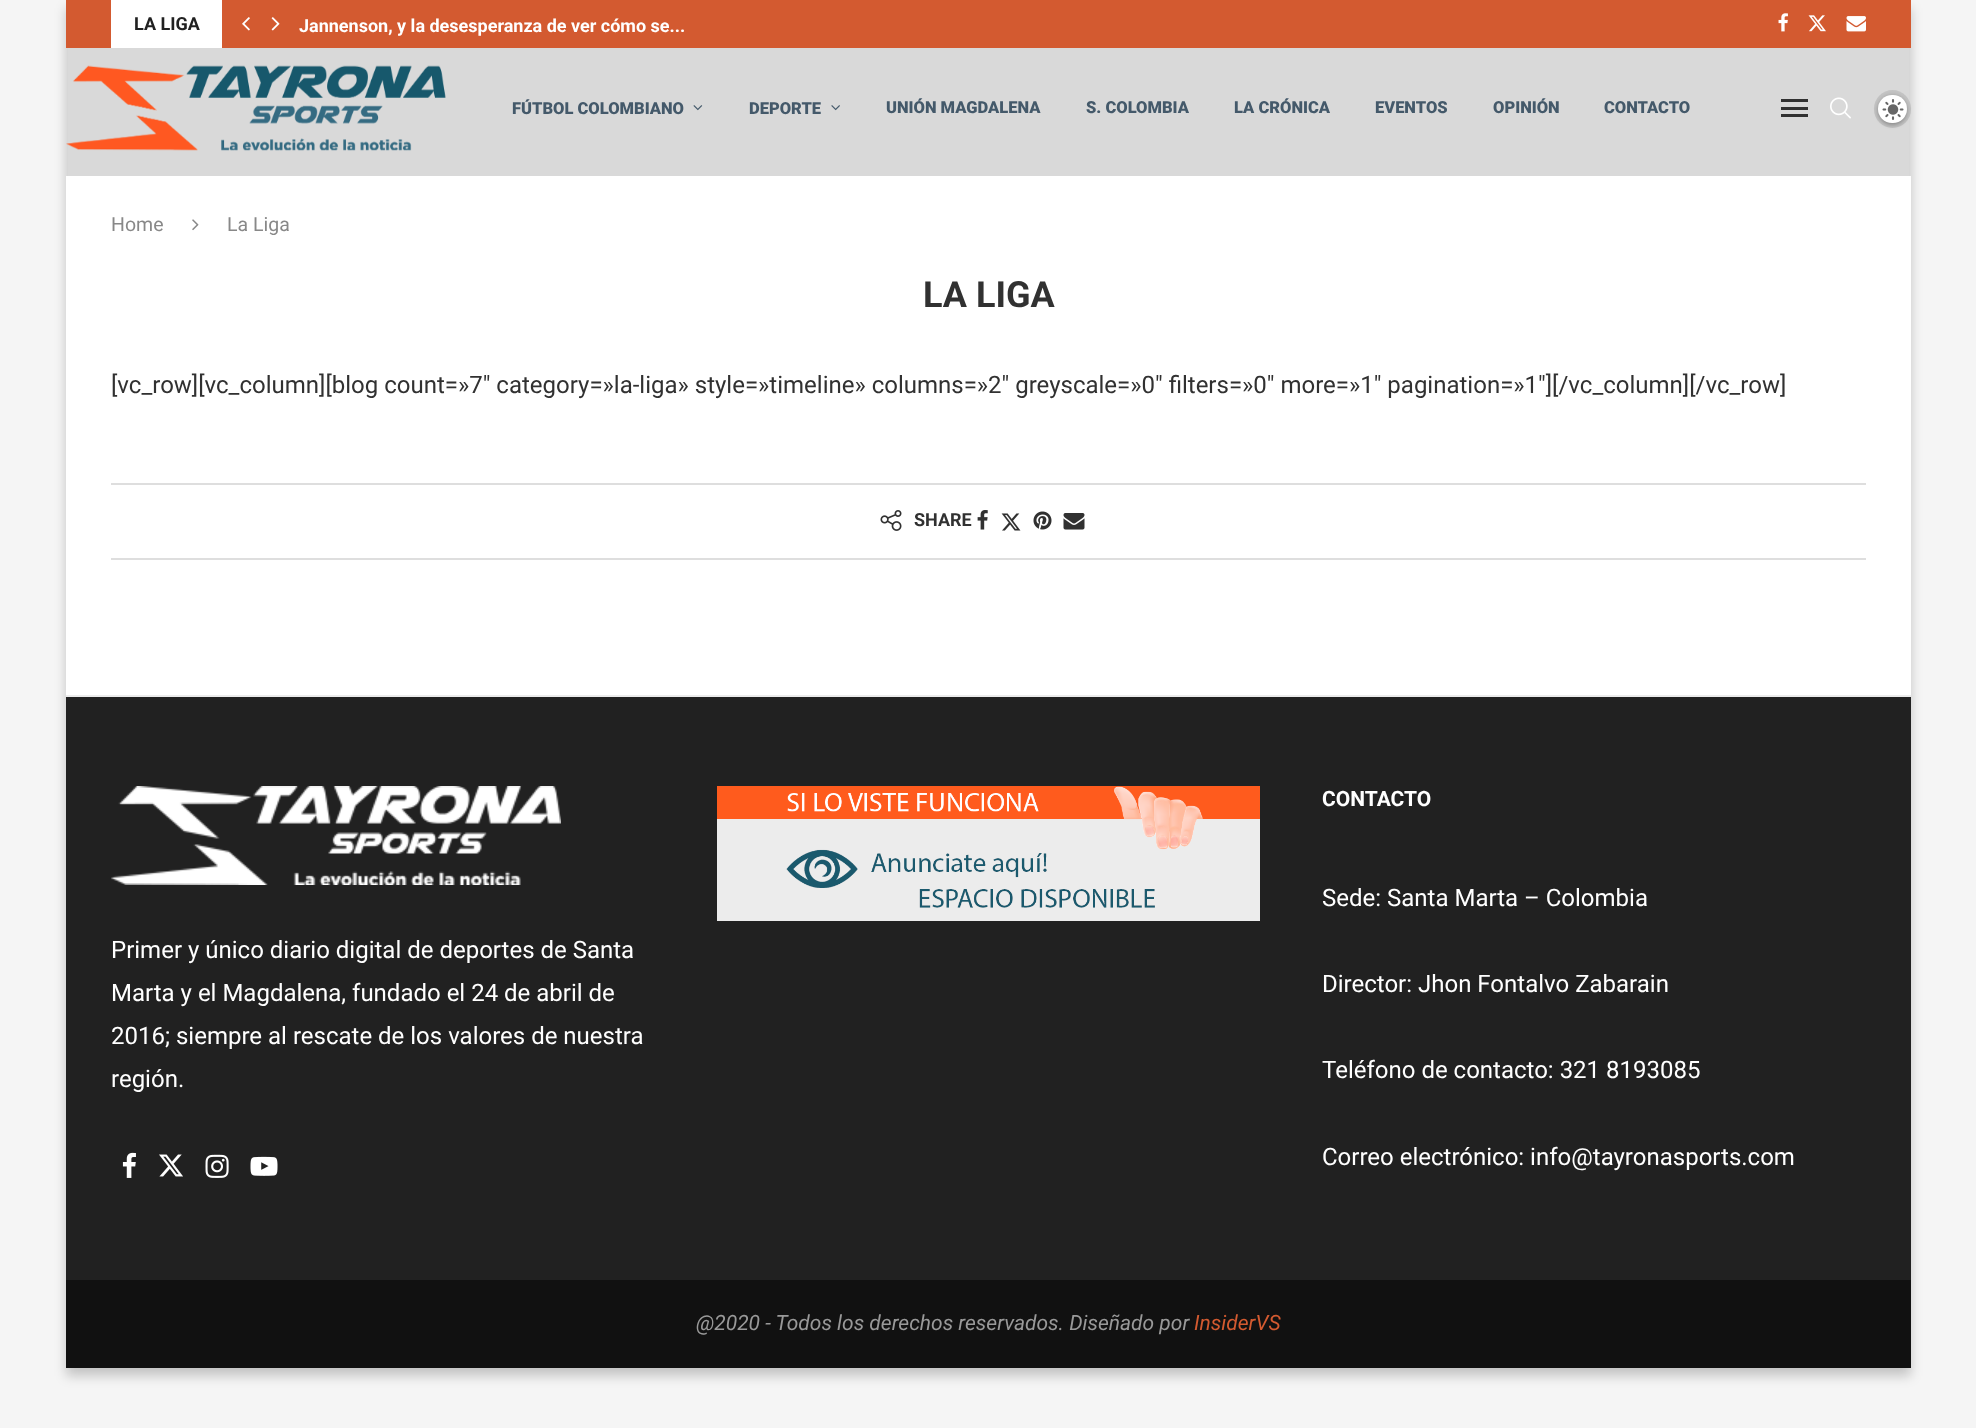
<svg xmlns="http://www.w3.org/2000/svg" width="1976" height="1428">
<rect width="100%" height="100%" fill="#f5f5f5"/>
<rect x="66" y="8" width="1845" height="1368" fill="#00000033" filter="blur(6px)"/>
<rect x="66" y="176" width="1845" height="519" fill="#fff"/>
<rect x="66" width="1845" height="48" fill="#d35a30"/>
<rect x="111" width="111" height="48" fill="#fff"/>
<text x="134" y="30" style="font-family:Roboto;font-size:18px;font-weight:bold;fill:#212121">LA LIGA</text>
<image x="242" y="17" width="8" height="14" href="media/1.png"/>
<image x="271" y="17" width="9" height="14" href="media/2.png"/>
<text x="299" y="32" style="font-family:Roboto;font-size:18px;font-weight:bold;fill:#fff">Jannenson, y la desesperanza de ver cómo se...</text>
<image x="1778" y="13" width="10" height="19" href="media/3.png"/>
<image x="1808" y="15" width="18" height="17" href="media/4.png"/>
<image x="1846" y="16" width="20" height="16" href="media/5.png"/>
<rect x="68" y="48" width="1841" height="128" fill="#d9d9d9"/>
<image x="66" y="65" width="380" height="86" href="media/6.png"/>
<text x="512" y="114" style="font-family:Roboto;font-size:16.5px;font-weight:900;fill:#44596a">FÚTBOL COLOMBIANO</text>
<image x="693" y="105" width="10" height="6" href="media/7.png"/>
<text x="749" y="114" style="font-family:Roboto;font-size:16.5px;font-weight:900;fill:#44596a">DEPORTE</text>
<image x="831" y="105" width="9" height="6" href="media/8.png"/>
<text x="886" y="113" style="font-family:Roboto;font-size:16.5px;font-weight:900;fill:#44596a">UNIÓN MAGDALENA</text>
<text x="1086" y="113" style="font-family:Roboto;font-size:16.5px;font-weight:900;fill:#44596a">S. COLOMBIA</text>
<text x="1234" y="113" style="font-family:Roboto;font-size:16.5px;font-weight:900;fill:#44596a">LA CRÓNICA</text>
<text x="1375" y="113" style="font-family:Roboto;font-size:16.5px;font-weight:900;fill:#44596a">EVENTOS</text>
<text x="1493" y="113" style="font-family:Roboto;font-size:16.5px;font-weight:900;fill:#44596a">OPINIÓN</text>
<text x="1604" y="113" style="font-family:Roboto;font-size:16.5px;font-weight:900;fill:#44596a">CONTACTO</text>
<rect x="1781" y="99" width="27" height="3" fill="#313131"/>
<rect x="1781" y="114" width="27" height="3" fill="#313131"/>
<rect x="1781" y="107" width="27" height="3" fill="#313131"/>
<image x="1830" y="97" width="21" height="22" href="media/9.png"/>
<rect x="1874" y="90" width="37" height="38" rx="18.5" fill="#c3c3c3"/>
<rect x="1878" y="96" width="29" height="29" rx="14.5" fill="#0000004d" filter="blur(2px)"/>
<rect x="1878" y="95" width="29" height="28" rx="14" fill="#fff"/>
<image x="1882" y="99" width="22" height="21" href="media/10.png"/>
<text x="111" y="231" style="font-family:Roboto;font-size:19.5px;fill:#888">Home</text>
<image x="192" y="219" width="7" height="12" href="media/11.png"/>
<text x="227" y="231" style="font-family:Roboto;font-size:19.5px;fill:#888">La Liga</text>
<text x="923" y="307" style="font-family:Roboto;font-size:36px;font-weight:bold;fill:#313131">LA LIGA</text>
<text x="111" y="393" style="font-family:Roboto;font-size:24px;fill:#313131">[vc_row][vc_column][blog count=»7″ category=»la-liga» style=»timeline» columns=»2″ greyscale=»0″ filters=»0″ more=»1″ pagination=»1″][/vc_column][/vc_row]</text>
<rect x="111" y="483" width="1755" height="2" fill="#dedede"/>
<rect x="111" y="558" width="1755" height="2" fill="#dedede"/>
<image x="880" y="510" width="22" height="21" href="media/12.png"/>
<text x="914" y="526" style="font-family:Roboto;font-size:18px;font-weight:bold;fill:#313131">SHARE</text>
<image x="977" y="510" width="11" height="20" href="media/13.png"/>
<image x="1001" y="513" width="20" height="18" href="media/14.png"/>
<image x="1033" y="511" width="19" height="19" href="media/15.png"/>
<image x="1063" y="513" width="22" height="17" href="media/16.png"/>
<rect x="66" y="697" width="1845" height="583" fill="#212121"/>
<rect x="66" y="695" width="1845" height="2" fill="#ececec"/>
<image x="111" y="786" width="450" height="99" href="media/17.png"/>
<text x="111" y="958" style="font-family:Roboto;font-size:24px;fill:#fff">Primer y único diario digital de deportes de Santa</text>
<text x="111" y="1001" style="font-family:Roboto;font-size:24px;fill:#fff">Marta y el Magdalena, fundado el 24 de abril de</text>
<text x="111" y="1044" style="font-family:Roboto;font-size:24px;fill:#fff">2016; siempre al rescate de los valores de nuestra</text>
<text x="111" y="1087" style="font-family:Roboto;font-size:24px;fill:#fff">región.</text>
<image x="122" y="1152" width="14" height="26" href="media/18.png"/>
<image x="159" y="1154" width="24" height="23" href="media/19.png"/>
<image x="205" y="1154" width="24" height="24" href="media/20.png"/>
<image x="250" y="1156" width="28" height="20" href="media/21.png"/>
<image x="717" y="786" width="543" height="135" href="media/22.png"/>
<text x="1322" y="806" style="font-family:Roboto;font-size:21px;font-weight:bold;fill:#fff">CONTACTO</text>
<text x="1322" y="906" style="font-family:Roboto;font-size:24px;fill:#fff">Sede: Santa Marta – Colombia</text>
<text x="1322" y="992" style="font-family:Roboto;font-size:24px;fill:#fff">Director: Jhon Fontalvo Zabarain</text>
<text x="1322" y="1078" style="font-family:Roboto;font-size:24px;fill:#fff">Teléfono de contacto: 321 8193085</text>
<text x="1322" y="1165" style="font-family:Roboto;font-size:24px;fill:#fff">Correo electrónico: info@tayronasports.com</text>
<rect x="66" y="1280" width="1845" height="88" fill="#111"/>
<text x="696" y="1330" style="font-family:Roboto;font-size:21px;font-style:italic;fill:#999">@2020 - Todos los derechos reservados. Diseñado por</text>
<text x="1194" y="1330" style="font-family:Roboto;font-size:21px;font-style:italic;fill:#d35a30">InsiderVS</text>
</svg>
